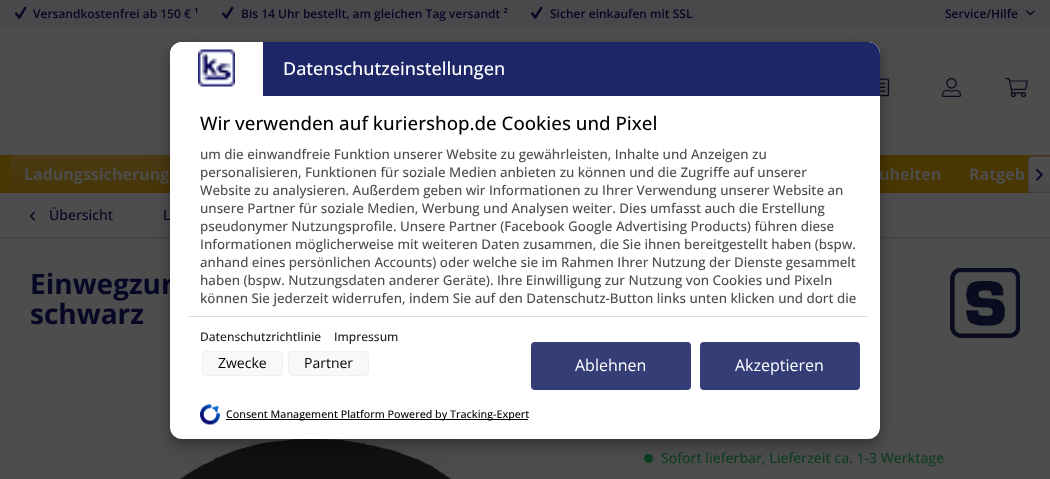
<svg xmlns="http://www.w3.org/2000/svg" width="1050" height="479">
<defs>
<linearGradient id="g1" gradientUnits="userSpaceOnUse" x1="97" y1="155" x2="97" y2="193"><stop offset="0" stop-color="#4a3b16"/><stop offset="1" stop-color="#473506"/></linearGradient>
<linearGradient id="g2" gradientUnits="userSpaceOnUse" x1="1040" y1="157" x2="1040" y2="192"><stop offset="0" stop-color="#4d4d4d"/><stop offset="1" stop-color="#4a4a4b"/></linearGradient>
</defs>
<rect width="100%" height="100%" fill="#4d4d4d"/>
<rect width="1050" height="27" fill="#49494b"/>
<image x="15" y="6" width="12" height="13" href="media/1.png"/>
<text x="33" y="18" style="font-family:Open Sans;font-size:12px;font-weight:600;fill:#060625">Versandkostenfrei ab 150 € ¹</text>
<image x="222" y="6" width="12" height="13" href="media/1.png"/>
<text x="241" y="18" style="font-family:Open Sans;font-size:12px;font-weight:600;fill:#060625">Bis 14 Uhr bestellt, am gleichen Tag versandt ²</text>
<image x="531" y="6" width="12" height="13" href="media/1.png"/>
<text x="550" y="18" style="font-family:Open Sans;font-size:12px;font-weight:600;fill:#060625">Sicher einkaufen mit SSL</text>
<text x="945" y="18" style="font-family:Open Sans;font-size:12px;font-weight:600;fill:#060625">Service/Hilfe</text>
<image x="1026" y="10" width="9" height="6" href="media/2.png"/>
<image x="880" y="78" width="10" height="19" href="media/3.png"/>
<image x="942" y="78" width="19" height="19" href="media/4.png"/>
<image x="1005" y="78" width="23" height="19" href="media/5.png"/>
<rect y="155" width="1050" height="38" fill="#4a3600"/>
<path d="M13 155h167c1.5 0 3 1.5 3 3v35h-173v-35c0-1.5 1.5-3 3-3z" fill="url(#g1)"/>
<text x="24" y="180" style="font-family:Open Sans;font-size:16px;font-weight:bold;fill:#4d4d4d">Ladungssicherung</text>
<text x="879" y="180" style="font-family:Open Sans;font-size:16px;font-weight:bold;fill:#4d4d4d">uheiten</text>
<text x="969" y="180" style="font-family:Open Sans;font-size:16px;font-weight:bold;fill:#4d4d4d">Ratgeb</text>
<path d="M1031 157h19v35h-19c-1 0-2-1-2-2v-31c0-1 1-2 2-2z" fill="url(#g2)"/>
<path d="M1031 156h19v37h-19c-1.5 0-3-1.5-3-3v-31c0-1.5 1.5-3 3-3zm0 1h19v35h-19c-1 0-2-1-2-2v-31c0-1 1-2 2-2z" fill="#414145" fill-rule="evenodd"/>
<image x="1036" y="168" width="7" height="13" href="media/6.png"/>
<rect y="237" width="1050" height="1" fill="#414145"/>
<image x="30" y="211" width="5" height="10" href="media/7.png"/>
<text x="49" y="220" style="font-family:Open Sans;font-size:14px;font-weight:500;fill:#060625">Übersicht</text>
<text x="163" y="220" style="font-family:Open Sans;font-size:14px;font-weight:500;fill:#060625">L</text>
<text x="30" y="294" style="font-family:Open Sans;font-size:28px;font-weight:bold;fill:#060625">Einwegzur</text>
<text x="30" y="324" style="font-family:Open Sans;font-size:28px;font-weight:bold;fill:#060625">schwarz</text>
<image x="950" y="268" width="70" height="70" href="media/8.png"/>
<image x="177" y="437" width="276" height="42" href="media/9.png"/>
<circle cx="648.5" cy="458.5" r="4.5" fill="#0e3d22"/>
<text x="661" y="463" style="font-family:Open Sans;font-size:14px;font-weight:500;fill:#0e3d22">Sofort lieferbar, Lieferzeit ca. 1-3 Werktage</text>
<rect x="170" y="49" width="710" height="397" rx="12" fill="#0000002b" filter="blur(10px)"/>
<rect x="170" y="47" width="710" height="397" rx="12" fill="#00000033" filter="blur(4px)"/>
<rect x="170" y="42" width="710" height="397" rx="12" fill="#fff"/>
<path d="M182 42h686c6.5 0 12 5.5 12 12v42h-710v-42c0-6.5 5.5-12 12-12z" fill="#fff"/>
<image x="198" y="49" width="37" height="38" href="media/10.png"/>
<path d="M263 42h605c6.5 0 12 5.5 12 12v42h-617z" fill="#1d2767"/>
<text x="283" y="75" style="font-family:Open Sans;font-size:18px;font-weight:500;fill:#fff">Datenschutzeinstellungen</text>
<text x="200" y="130" style="font-family:Open Sans;font-size:18.7px;font-weight:500;fill:#000">Wir verwenden auf kuriershop.de Cookies und Pixel</text>
<text x="200" y="159" style="font-family:Open Sans;font-size:13.35px;font-weight:500;fill:#4d4d4d">um die einwandfreie Funktion unserer Website zu gewährleisten, Inhalte und Anzeigen zu</text>
<text x="200" y="177" style="font-family:Open Sans;font-size:13.35px;font-weight:500;fill:#4d4d4d">personalisieren, Funktionen für soziale Medien anbieten zu können und die Zugriffe auf unserer</text>
<text x="200" y="195" style="font-family:Open Sans;font-size:13.35px;font-weight:500;fill:#4d4d4d">Website zu analysieren. Außerdem geben wir Informationen zu Ihrer Verwendung unserer Website an</text>
<text x="200" y="213" style="font-family:Open Sans;font-size:13.35px;font-weight:500;fill:#4d4d4d">unsere Partner für soziale Medien, Werbung und Analysen weiter. Dies umfasst auch die Erstellung</text>
<text x="200" y="231" style="font-family:Open Sans;font-size:13.35px;font-weight:500;fill:#4d4d4d">pseudonymer Nutzungsprofile. Unsere Partner (Facebook Google Advertising Products) führen diese</text>
<text x="200" y="249" style="font-family:Open Sans;font-size:13.35px;font-weight:500;fill:#4d4d4d">Informationen möglicherweise mit weiteren Daten zusammen, die Sie ihnen bereitgestellt haben (bspw.</text>
<text x="200" y="267" style="font-family:Open Sans;font-size:13.35px;font-weight:500;fill:#4d4d4d">anhand eines persönlichen Accounts) oder welche sie im Rahmen Ihrer Nutzung der Dienste gesammelt</text>
<text x="200" y="285" style="font-family:Open Sans;font-size:13.35px;font-weight:500;fill:#4d4d4d">haben (bspw. Nutzungsdaten anderer Geräte). Ihre Einwilligung zur Nutzung von Cookies und Pixeln</text>
<text x="200" y="303" style="font-family:Open Sans;font-size:13.35px;font-weight:500;fill:#4d4d4d">können Sie jederzeit widerrufen, indem Sie auf den Datenschutz-Button links unten klicken und dort die</text>
<rect x="188" y="316" width="680" height="1" fill="#ddd"/>
<text x="200" y="341" style="font-family:Open Sans;font-size:12px;font-weight:500;fill:#212121">Datenschutzrichtlinie</text>
<text x="334" y="341" style="font-family:Open Sans;font-size:12px;font-weight:500;fill:#212121">Impressum</text>
<rect x="202.5" y="351.5" width="80" height="24" rx="3.5" fill="#f8f8f8" stroke="#efefef"/>
<text x="218" y="368" style="font-family:Open Sans;font-size:14px;fill:#000">Zwecke</text>
<rect x="288.5" y="351.5" width="80" height="24" rx="3.5" fill="#f8f8f8" stroke="#efefef"/>
<text x="304" y="368" style="font-family:Open Sans;font-size:14px;fill:#000">Partner</text>
<rect x="531" y="342" width="160" height="48" rx="4" fill="#343d76"/>
<text x="575" y="371" style="font-family:Open Sans;font-size:16px;fill:#fff">Ablehnen</text>
<rect x="700" y="342" width="160" height="48" rx="4" fill="#343d76"/>
<text x="735" y="371" style="font-family:Open Sans;font-size:16px;fill:#fff">Akzeptieren</text>
<image x="200" y="404" width="20" height="21" href="media/11.png"/>
<rect x="226" y="419" width="302" height="1" fill="#000"/>
<text x="226" y="418" style="font-family:Open Sans;font-size:10.7px;font-weight:500;fill:#000">Consent Management Platform Powered by Tracking-Expert</text>
</svg>
